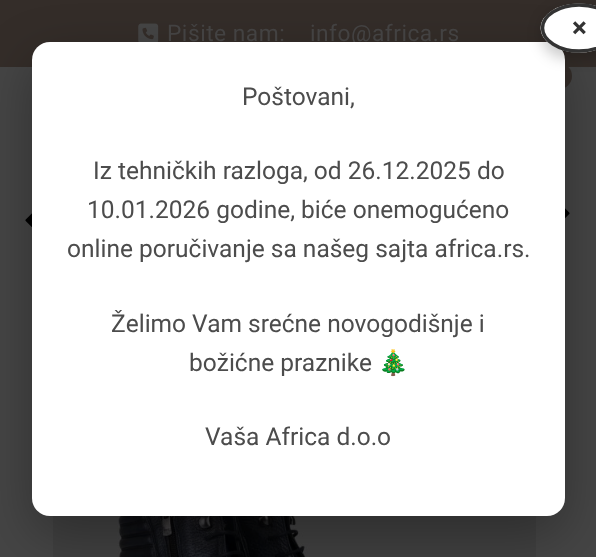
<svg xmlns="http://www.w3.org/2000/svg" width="596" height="557">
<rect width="100%" height="100%" fill="#454545"/>
<circle cx="559" cy="76" r="13" fill="#342d29"/>
<rect width="596" height="67" fill="#342d29"/>
<image x="138" y="23" width="21" height="19" href="media/1.png"/>
<image x="25" y="213" width="7" height="14" href="media/2.png"/>
<image x="565" y="208" width="5" height="11" href="media/3.png"/>
<image x="53" y="516" width="483" height="41" href="media/4.png"/>
<rect x="32" y="60" width="533" height="474" rx="18" fill="#0000004d" filter="blur(26px)"/>
<text x="310" y="41" style="font-family:Roboto;font-size:22.75px;letter-spacing:0.5px;fill:#434242">info@africa.rs</text>
<rect x="32" y="42" width="533" height="474" rx="18" fill="#fff"/>
<rect x="541" y="9" width="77" height="49" rx="24.5" fill="#00000033" filter="blur(7px)"/>
<ellipse cx="579" cy="28" rx="38.5" ry="24.5" fill="#fff"/>
<path d="M579 5c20.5 0 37 10.5 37 23c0 12.5-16.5 23-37 23c-20 0-36.5-10.5-36.5-23c0-12.5 16.5-23 36.5-23z" fill="none" stroke="#333" stroke-width="3.5"/>
<text x="572" y="37" style="font-family:Roboto;font-size:28px;font-weight:bold;letter-spacing:0.5px;fill:#333">×</text>
<text x="242" y="105" style="font-family:Roboto;font-size:24.5px;fill:#4c4c4c">Poštovani,</text>
<text x="93" y="179" style="font-family:Roboto;font-size:24.5px;fill:#4c4c4c">Iz tehničkih razloga, od 26.12.2025 do</text>
<text x="87" y="218" style="font-family:Roboto;font-size:24.5px;fill:#4c4c4c">10.01.2026 godine, biće onemogućeno</text>
<text x="67" y="257" style="font-family:Roboto;font-size:24.5px;fill:#4c4c4c">online poručivanje sa našeg sajta africa.rs.</text>
<text x="111" y="332" style="font-family:Roboto;font-size:24.5px;fill:#4c4c4c">Želimo Vam srećne novogodišnje i</text>
<text x="189" y="371" style="font-family:Roboto;font-size:24.5px;fill:#4c4c4c">božićne praznike</text>
<text x="378" y="371" style="font-family:Noto Color Emoji;font-size:24.5px;fill:#4c4c4c">🎄</text>
<text x="205" y="445" style="font-family:Roboto;font-size:24.5px;fill:#4c4c4c">Vaša Africa d.o.o</text>
<text x="167" y="41" style="font-family:Roboto;font-size:22.75px;letter-spacing:0.5px;fill:#434242">Pišite nam:</text>
</svg>
